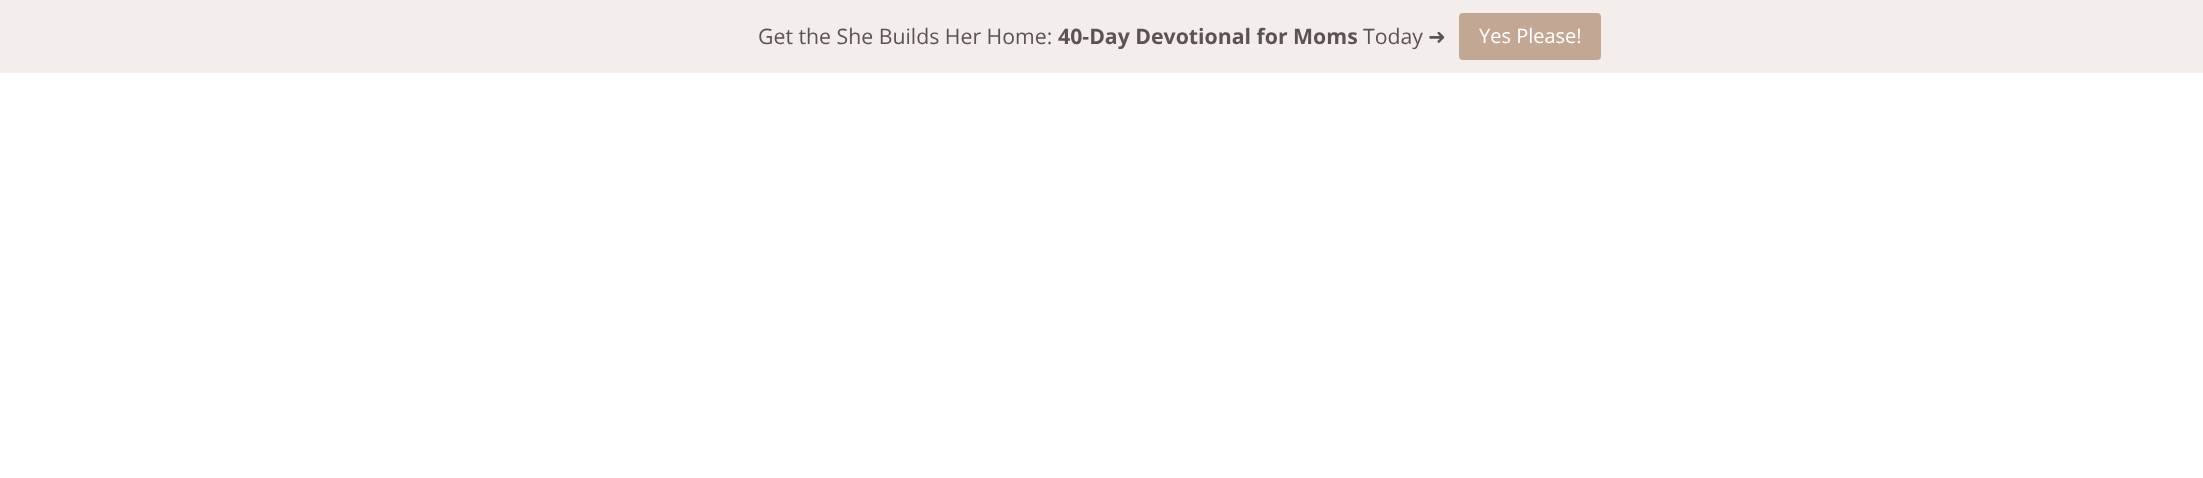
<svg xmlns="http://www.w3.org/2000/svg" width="2203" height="478">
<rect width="100%" height="100%" fill="#fff"/>
<rect width="2203" height="73" fill="#f3eeeb"/>
<text x="758" y="44" style="font-family:Open Sans;font-size:21.25px;fill:#5d5354">Get the She Builds Her Home:</text>
<text x="1058" y="44" style="font-family:Open Sans;font-size:21.25px;font-weight:bold;fill:#5d5354">40-Day Devotional for Moms</text>
<text x="1363" y="44" style="font-family:Open Sans;font-size:21.25px;fill:#5d5354">Today</text>
<text x="1428" y="44" style="font-family:DejaVu Sans;font-size:21.25px;fill:#5d5354">➜</text>
<rect x="1459" y="13" width="142" height="47" rx="4" fill="#c2a894"/>
<text x="1479" y="43" style="font-family:Open Sans;font-size:20px;fill:#fff">Yes Please!</text>
</svg>
